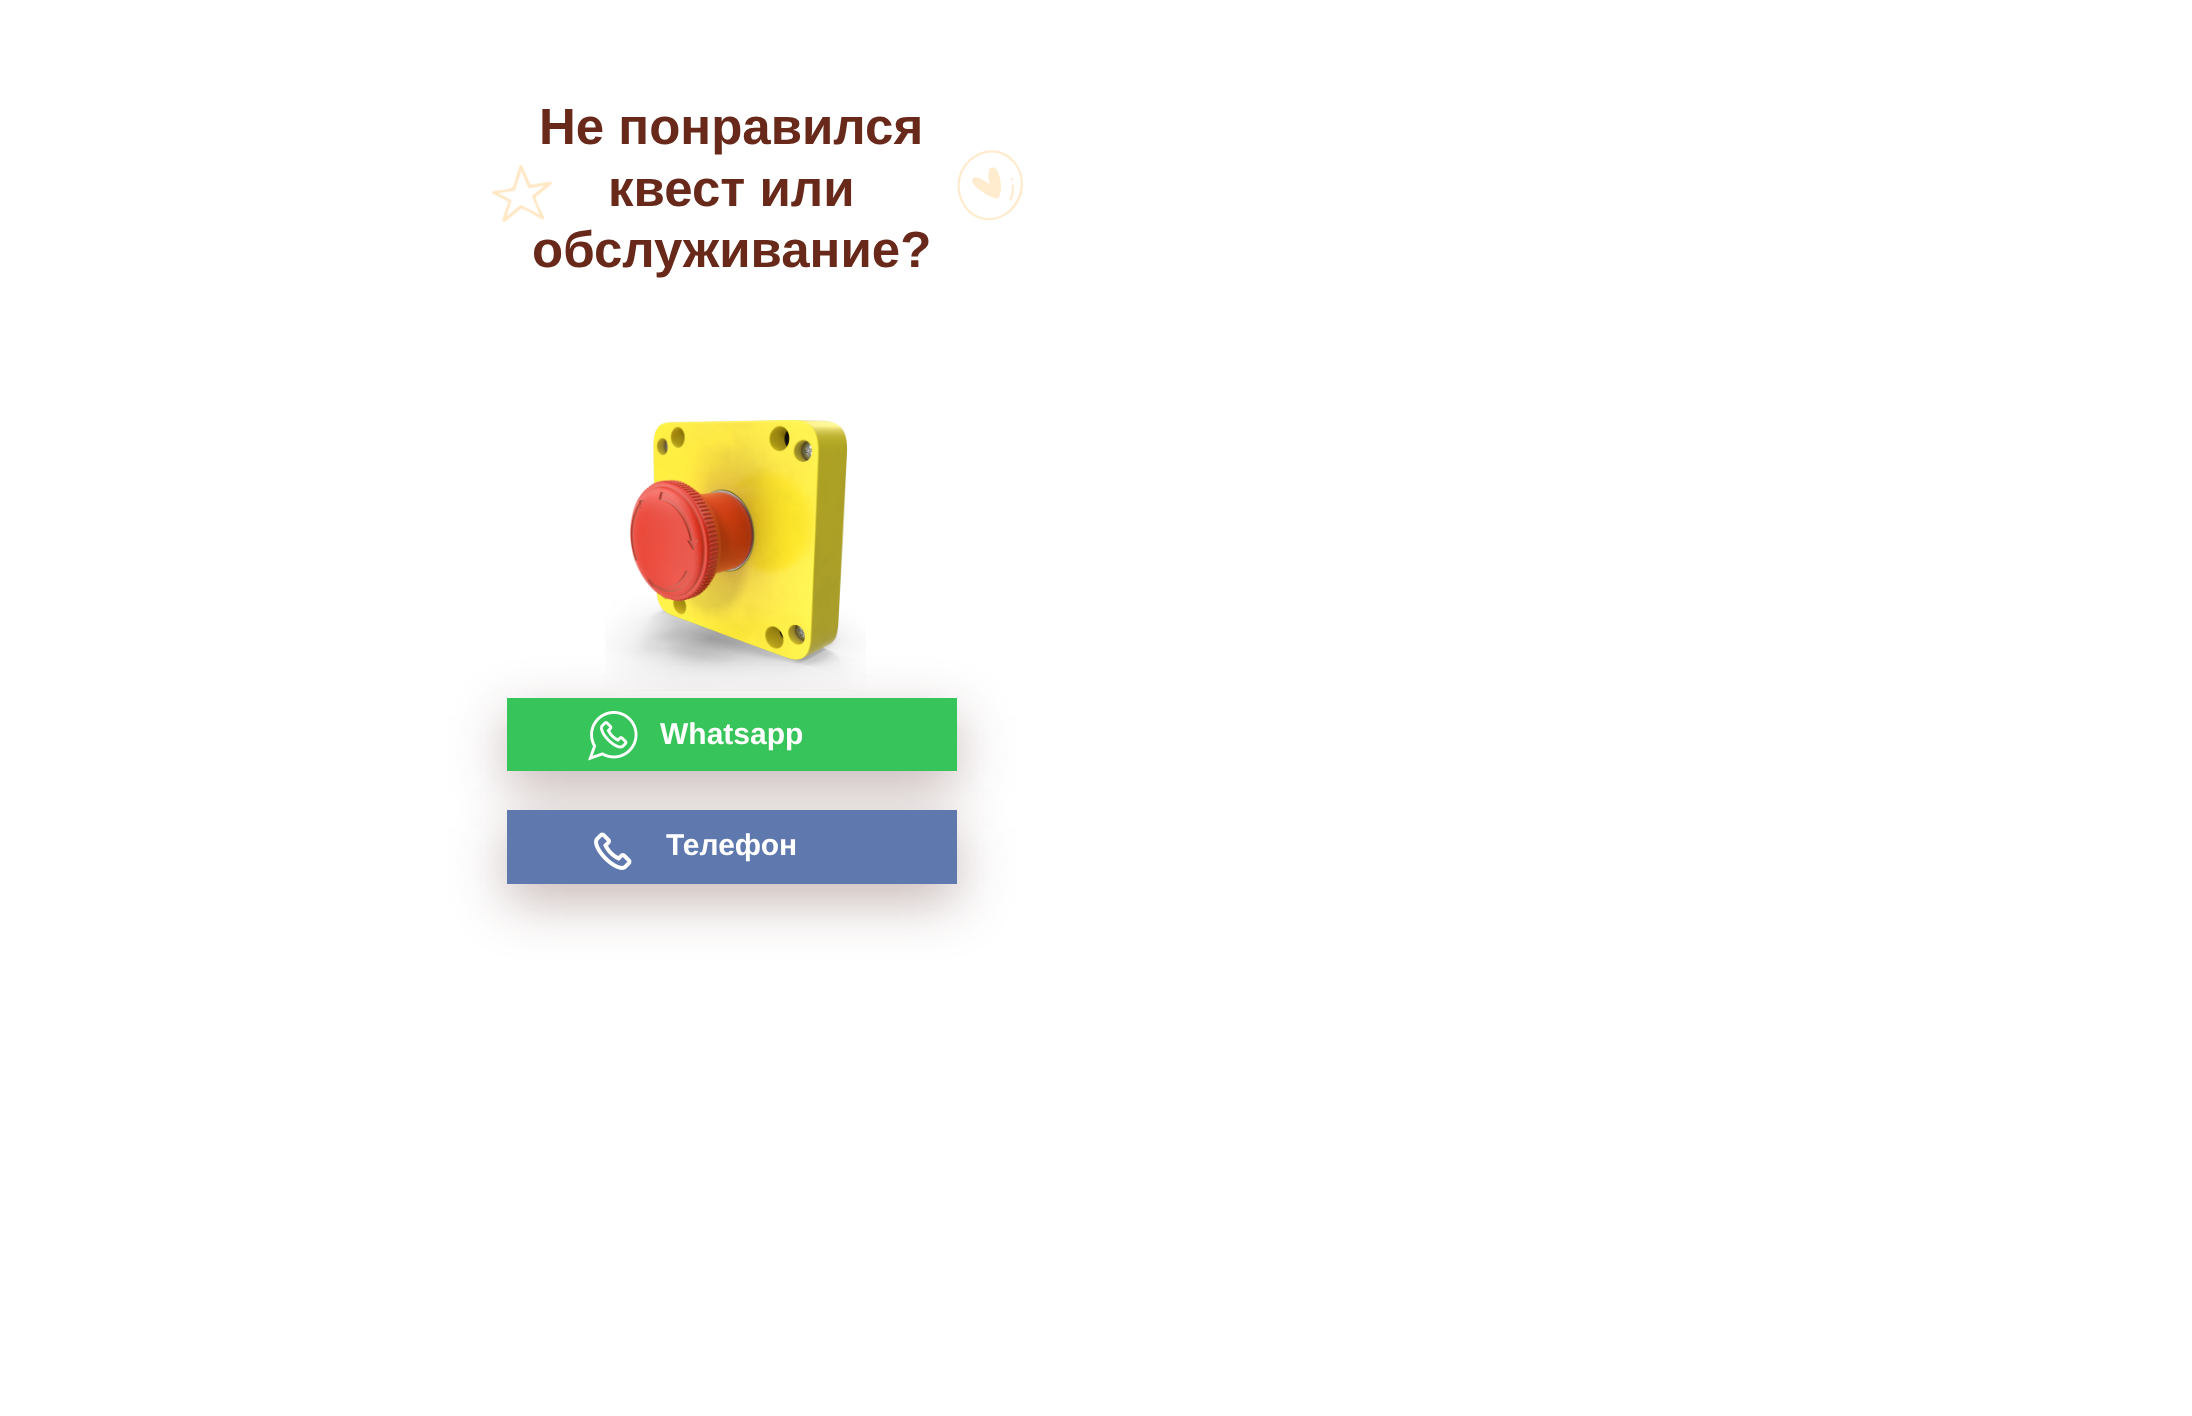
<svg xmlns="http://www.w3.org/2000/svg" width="2192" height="1416">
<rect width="100%" height="100%" fill="#fff"/>
<image x="492" y="165" width="60" height="57" href="media/1.png"/>
<text x="539" y="144" style="font-family:Liberation Sans;font-size:51px;font-weight:bold;fill:#68291a">Не понравился</text>
<text x="608" y="206" style="font-family:Liberation Sans;font-size:51px;font-weight:bold;fill:#68291a">квест или</text>
<text x="532" y="267" style="font-family:Liberation Sans;font-size:51px;font-weight:bold;fill:#68291a">обслуживание?</text>
<image x="957" y="150" width="66" height="71" href="media/2.png"/>
<image x="605" y="420" width="261" height="271" href="media/3.png"/>
<rect x="507" y="716" width="450" height="73" fill="#4417114d" filter="blur(27px)"/>
<rect x="507" y="698" width="450" height="73" fill="#37c45a"/>
<rect x="507" y="828" width="450" height="74" fill="#4417114d" filter="blur(27px)"/>
<image x="588" y="711" width="50" height="50" href="media/4.png"/>
<text x="660" y="744" style="font-family:Liberation Sans;font-size:30px;font-weight:bold;fill:#fff">Whatsapp</text>
<rect x="507" y="810" width="450" height="74" fill="#5f78ad"/>
<image x="594" y="832" width="38" height="38" href="media/5.png"/>
<text x="666" y="855" style="font-family:Liberation Sans;font-size:30px;font-weight:bold;fill:#fff">Телефон</text>
</svg>
